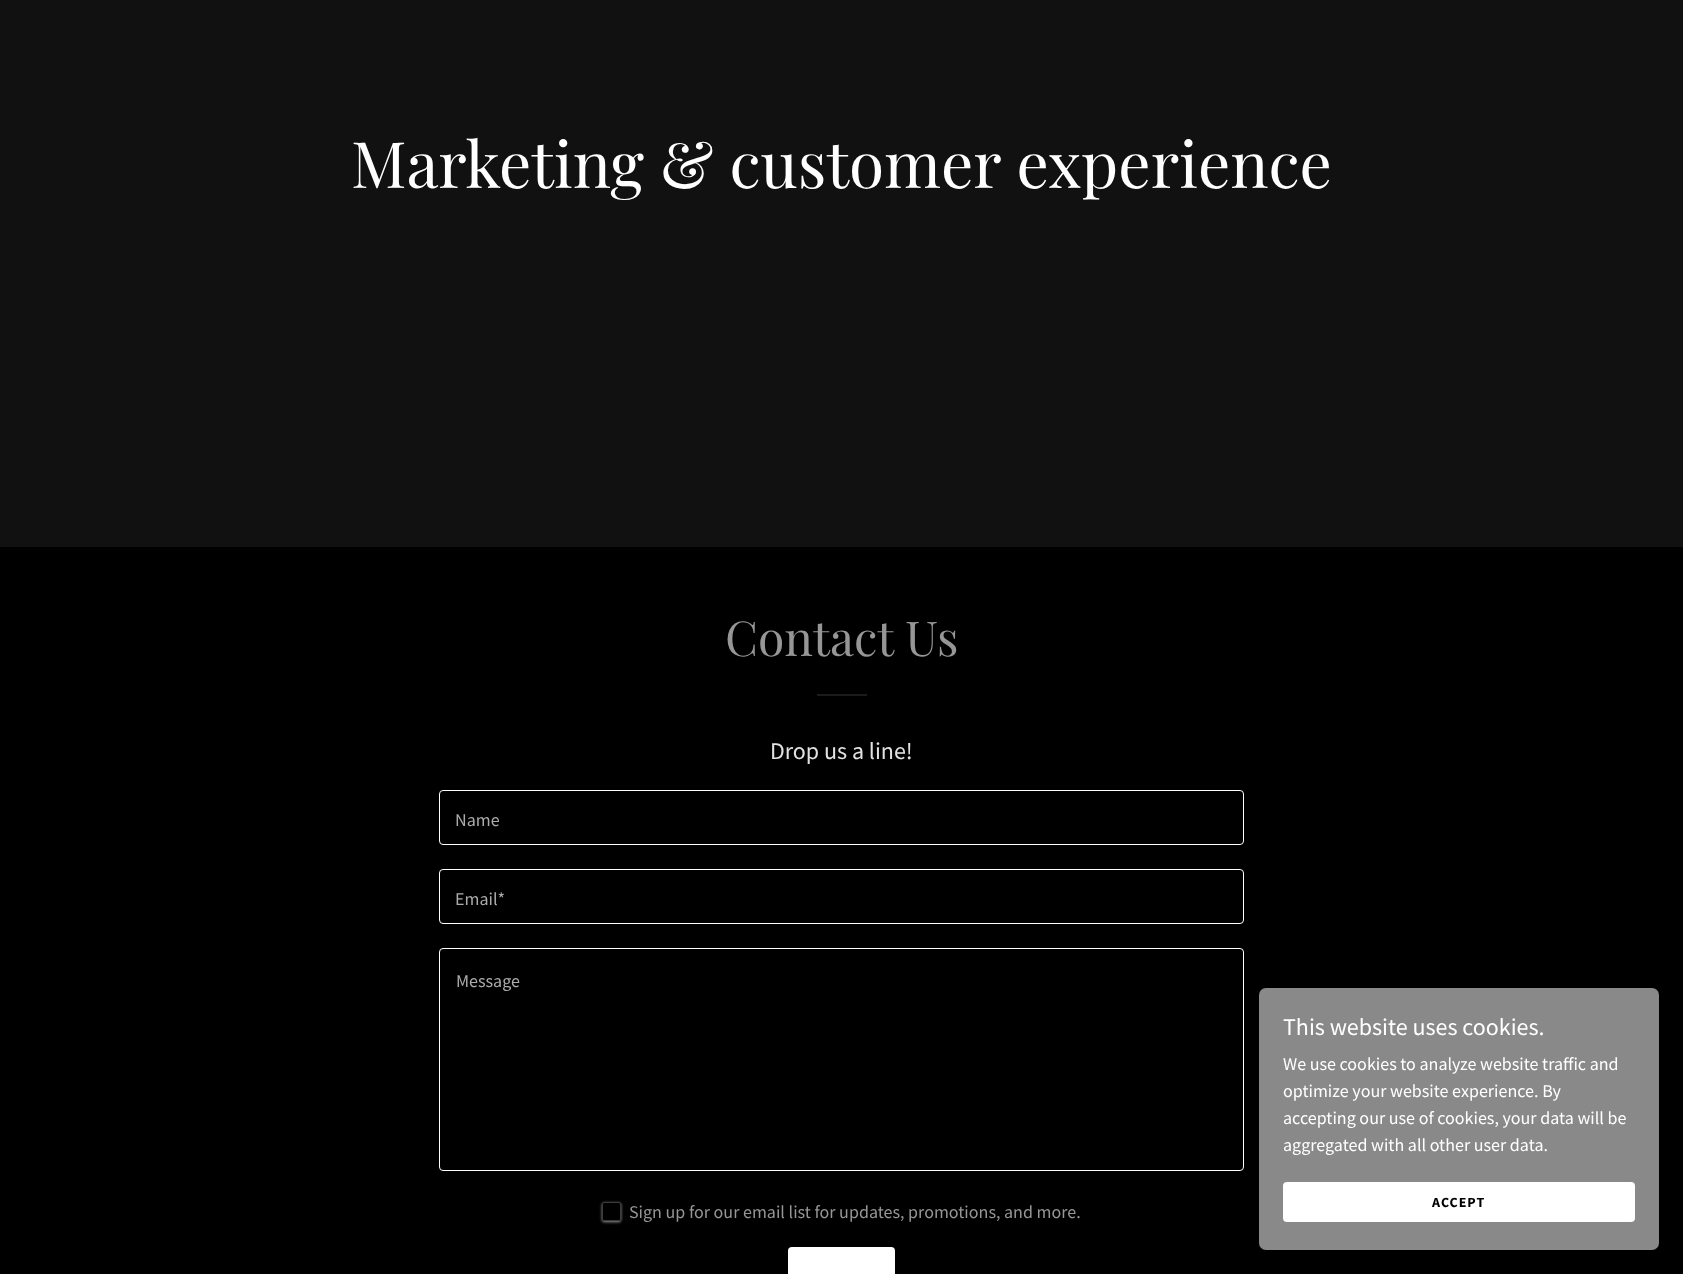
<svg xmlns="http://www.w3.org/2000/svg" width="1683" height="1274">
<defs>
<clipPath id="clip1"><path d="M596 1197h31v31h-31zm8 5h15c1 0 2 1 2 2v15c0 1-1 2-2 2h-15c-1 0-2-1-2-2v-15c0-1 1-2 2-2z" clip-rule="evenodd"/></clipPath>
</defs>
<rect width="100%" height="100%" fill="#000"/>
<rect width="1683" height="547" fill="#111"/>
<text x="351" y="188" style="font-family:Playfair Display;font-size:64px;fill:#fff">Marketing &amp; customer experience</text>
<text x="725" y="656" style="font-family:Playfair Display;font-size:48px;fill:#969696">Contact Us</text>
<rect x="817" y="694" width="50" height="2" fill="#1b1b1b"/>
<text x="770" y="759" style="font-family:Source Sans Pro;font-size:24px;fill:#e2e2e2">Drop us a line!</text>
<rect x="439.5" y="790.5" width="804" height="54" rx="3.5" fill="none" stroke="#fff"/>
<text x="455" y="826" style="font-family:Source Sans Pro;font-size:18px;fill:#ababab">Name</text>
<rect x="439.5" y="869.5" width="804" height="54" rx="3.5" fill="none" stroke="#fff"/>
<text x="455" y="905" style="font-family:Source Sans Pro;font-size:18px;fill:#ababab">Email*</text>
<rect x="439.5" y="948.5" width="804" height="222" rx="3.5" fill="none" stroke="#fff"/>
<text x="456" y="987" style="font-family:Source Sans Pro;font-size:18px;fill:#ababab">Message</text>
<g clip-path="url(#clip1)">
<rect x="602" y="1203" width="19" height="19" rx="2" fill="#969696" filter="blur(1.5px)"/>
</g>
<rect x="602.5" y="1202.5" width="18" height="18" rx="1.5" fill="none" stroke="#77777780"/>
<text x="629" y="1218" style="font-family:Source Sans Pro;font-size:18px;fill:#969696">Sign up for our email list for updates, promotions, and more.</text>
<rect x="788" y="1247" width="107" height="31" rx="4" fill="#fff"/>
<rect x="1259" y="988" width="400" height="262" rx="7" fill="#898989"/>
<text x="1283" y="1035" style="font-family:Source Sans Pro;font-size:24px;fill:#fff">This website uses cookies.</text>
<text x="1283" y="1070" style="font-family:Source Sans Pro;font-size:18px;fill:#fff">We use cookies to analyze website traffic and</text>
<text x="1283" y="1097" style="font-family:Source Sans Pro;font-size:18px;fill:#fff">optimize your website experience. By</text>
<text x="1283" y="1124" style="font-family:Source Sans Pro;font-size:18px;fill:#fff">accepting our use of cookies, your data will be</text>
<text x="1283" y="1151" style="font-family:Source Sans Pro;font-size:18px;fill:#fff">aggregated with all other user data.</text>
<rect x="1283" y="1182" width="352" height="40" rx="4" fill="#fff"/>
<text x="1432" y="1207" style="font-family:Source Sans Pro;font-size:14px;font-weight:bold;letter-spacing:1px;fill:#000">ACCEPT</text>
</svg>
